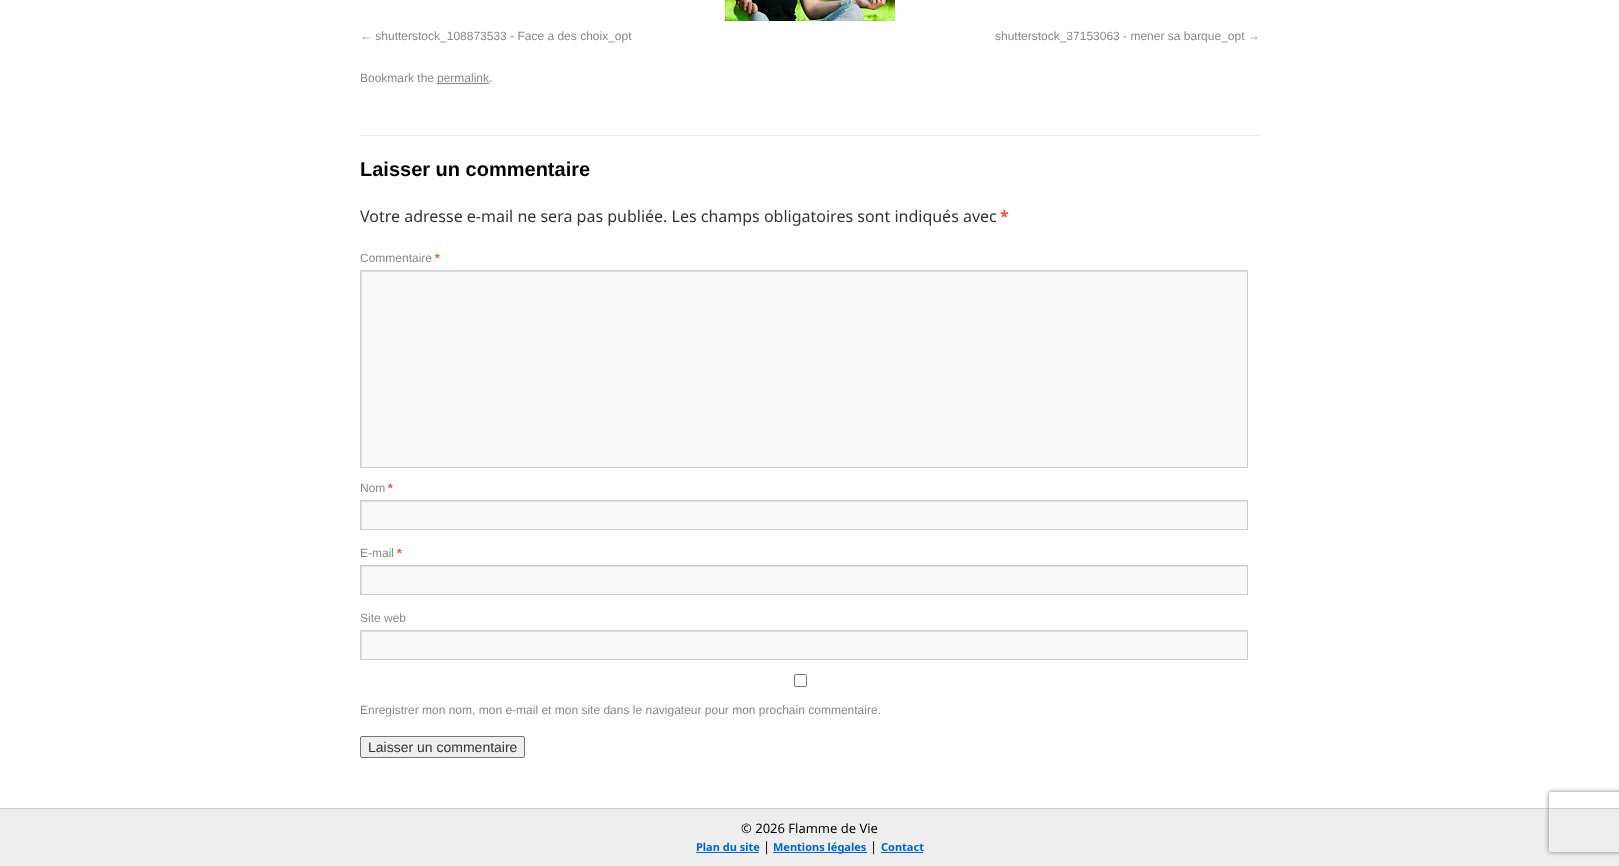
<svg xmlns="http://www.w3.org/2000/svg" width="1619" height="866">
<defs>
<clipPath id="clip1"><rect x="361" y="271" width="886" height="196"/></clipPath>
<clipPath id="clip2"><rect x="361" y="501" width="886" height="28"/></clipPath>
<clipPath id="clip3"><rect x="361" y="566" width="886" height="28"/></clipPath>
<clipPath id="clip4"><rect x="361" y="631" width="886" height="28"/></clipPath>
<clipPath id="clip5"><path d="M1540 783h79v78h-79zm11 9h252c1 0 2 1 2 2v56c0 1-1 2-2 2h-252c-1 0-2-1-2-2v-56c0-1 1-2 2-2z" clip-rule="evenodd"/></clipPath>
</defs>
<rect width="100%" height="100%" fill="#fff"/>
<image x="725" y="0" width="170" height="21" href="media/1.png"/>
<text x="360" y="40" style="font-family:Liberation Sans;font-size:12px;fill:#888">← shutterstock_108873533 - Face a des choix_opt</text>
<text x="995" y="40" style="font-family:Liberation Sans;font-size:12px;fill:#888">shutterstock_37153063 - mener sa barque_opt →</text>
<text x="360" y="82" style="font-family:Liberation Sans;font-size:12px;fill:#888">Bookmark the</text>
<rect x="437" y="83" width="52" height="1" fill="#888"/>
<text x="437" y="82" style="font-family:Liberation Sans;font-size:12px;fill:#888">permalink.</text>
<rect x="360" y="135" width="900" height="1" fill="#e7e7e7"/>
<text x="360" y="176" style="font-family:Liberation Sans;font-size:20px;font-weight:bold;fill:#000">Laisser un commentaire</text>
<text x="360" y="222" style="font-family:Noto Sans;font-size:16px;fill:#333">Votre adresse e-mail ne sera pas publiée. Les champs obligatoires sont indiqués avec</text>
<text x="1000" y="222" style="font-family:Noto Sans;font-size:16px;font-weight:bold;fill:#ff4b33">*</text>
<text x="360" y="262" style="font-family:Liberation Sans;font-size:12px;fill:#888">Commentaire</text>
<text x="435" y="262" style="font-family:Liberation Sans;font-size:12px;font-weight:bold;fill:#ff4b33">*</text>
<rect x="362" y="272" width="885" height="195" fill="#f9f9f9"/>
<g clip-path="url(#clip1)">
<path d="M262 172h1084v394h-1084zm100 100h886v196h-886z" fill="#e0e0e0" fill-rule="evenodd"/>
</g>
<rect x="360.5" y="270.5" width="887" height="197" fill="none" stroke="#ccc"/>
<text x="360" y="492" style="font-family:Liberation Sans;font-size:12px;fill:#888">Nom</text>
<text x="388" y="492" style="font-family:Liberation Sans;font-size:12px;font-weight:bold;fill:#ff4b33">*</text>
<rect x="362" y="502" width="885" height="27" fill="#f9f9f9"/>
<g clip-path="url(#clip2)">
<path d="M262 402h1084v226h-1084zm100 100h886v28h-886z" fill="#e0e0e0" fill-rule="evenodd"/>
</g>
<rect x="360.5" y="500.5" width="887" height="29" fill="none" stroke="#ccc"/>
<text x="360" y="557" style="font-family:Liberation Sans;font-size:12px;fill:#888">E-mail</text>
<text x="397" y="557" style="font-family:Liberation Sans;font-size:12px;font-weight:bold;fill:#ff4b33">*</text>
<rect x="362" y="567" width="885" height="27" fill="#f9f9f9"/>
<g clip-path="url(#clip3)">
<path d="M262 467h1084v226h-1084zm100 100h886v28h-886z" fill="#e0e0e0" fill-rule="evenodd"/>
</g>
<rect x="360.5" y="565.5" width="887" height="29" fill="none" stroke="#ccc"/>
<text x="360" y="622" style="font-family:Liberation Sans;font-size:12px;fill:#888">Site web</text>
<rect x="362" y="632" width="885" height="27" fill="#f9f9f9"/>
<g clip-path="url(#clip4)">
<path d="M262 532h1084v226h-1084zm100 100h886v28h-886z" fill="#e0e0e0" fill-rule="evenodd"/>
</g>
<rect x="360.5" y="630.5" width="887" height="29" fill="none" stroke="#ccc"/>
<rect x="794.5" y="674.5" width="12" height="12" rx="1.5" fill="none" stroke="#767676"/>
<text x="360" y="714" style="font-family:Liberation Sans;font-size:12px;fill:#888">Enregistrer mon nom, mon e-mail et mon site dans le navigateur pour mon prochain commentaire.</text>
<rect x="360.5" y="736.5" width="164" height="21" rx="1.5" fill="#efefef" stroke="#767676"/>
<text x="368" y="752" style="font-family:Liberation Sans;font-size:14px;fill:#333">Laisser un commentaire</text>
<rect y="809" width="1619" height="57" fill="#eee"/>
<rect y="808" width="1619" height="1" fill="#ccc"/>
<text x="741" y="833" style="font-family:Noto Sans;font-size:13px;fill:#000">© 2026 Flamme de Vie</text>
<text x="696" y="851" style="font-family:Noto Sans;font-size:11px;font-weight:bold;fill:#06c">Plan du site</text>
<rect x="696" y="852" width="63" height="1" fill="#06c"/>
<text x="763" y="851" style="font-family:Noto Sans;font-size:13px;fill:#000">|</text>
<rect x="773" y="852" width="94" height="1" fill="#06c"/>
<text x="773" y="851" style="font-family:Noto Sans;font-size:11px;font-weight:bold;fill:#06c">Mentions légales</text>
<text x="870" y="851" style="font-family:Noto Sans;font-size:13px;fill:#000">|</text>
<text x="881" y="851" style="font-family:Noto Sans;font-size:11px;font-weight:bold;fill:#06c">Contact</text>
<rect x="881" y="852" width="42" height="1" fill="#06c"/>
<g clip-path="url(#clip5)">
<rect x="1549" y="792" width="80" height="60" rx="2" fill="#808080" filter="blur(2.5px)"/>
</g>
</svg>
